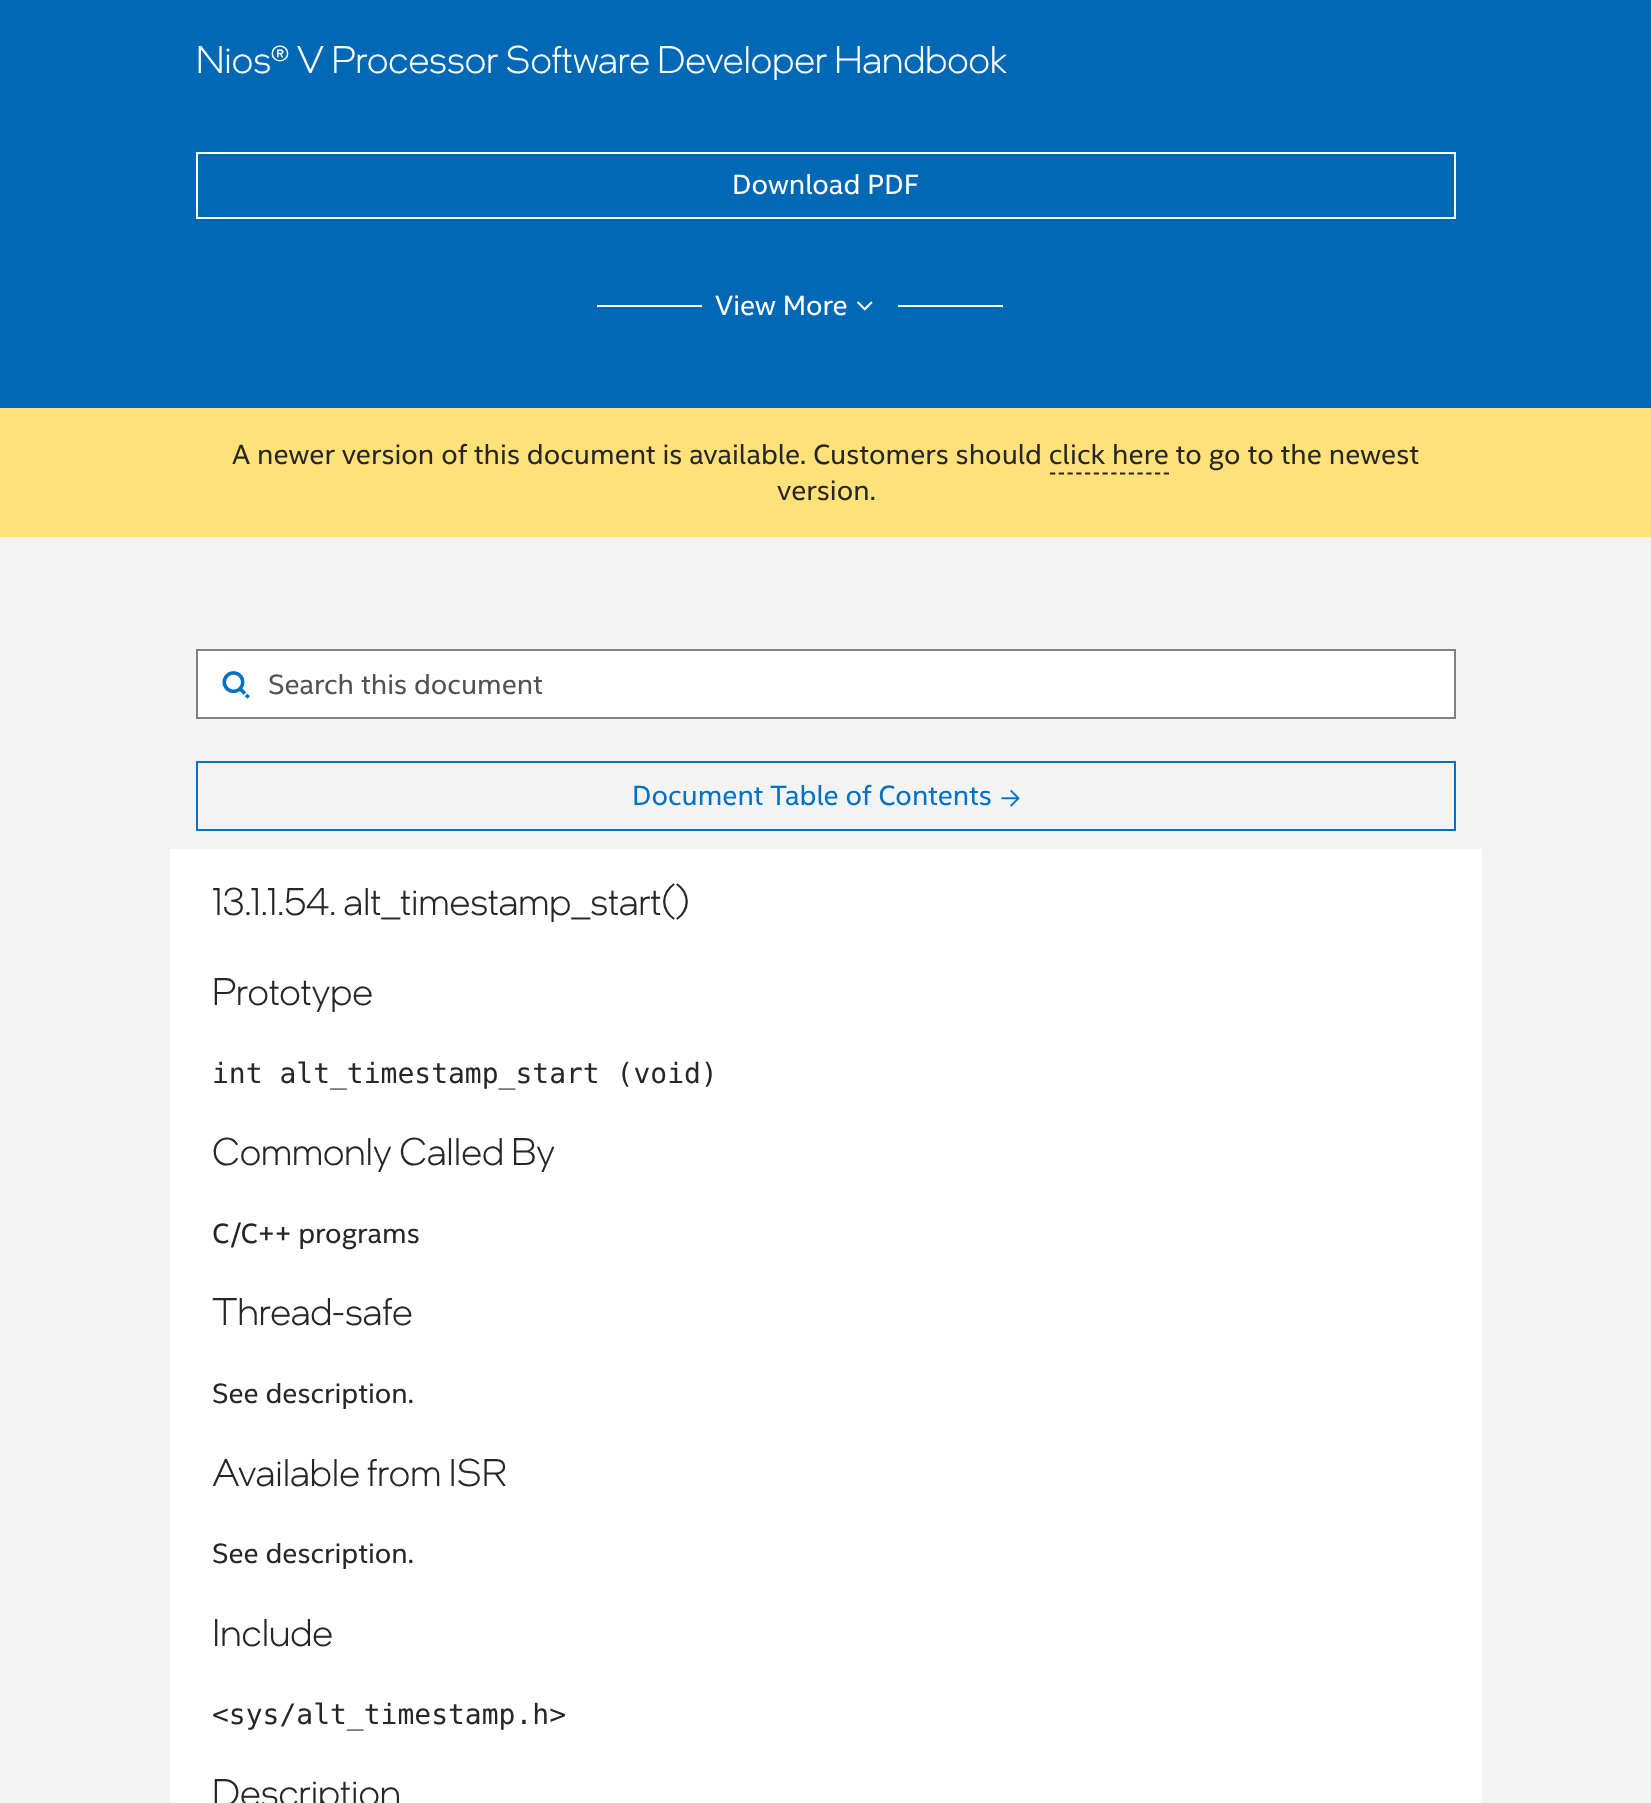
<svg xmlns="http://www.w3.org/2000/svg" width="1651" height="1803">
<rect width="100%" height="100%" fill="#0068b5"/>
<text x="196" y="73" style="font-family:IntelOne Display;font-size:38.5px;font-weight:300;fill:#fff">Nios® V Processor Software Developer Handbook</text>
<rect x="197" y="153" width="1258" height="65" fill="none" stroke="#fff" stroke-width="2"/>
<text x="732" y="194" style="font-family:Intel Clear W;font-size:28px;fill:#fff">Download PDF</text>
<rect x="597" y="305" width="105" height="2" fill="#fff"/>
<text x="715" y="315" style="font-family:Intel Clear W;font-size:28px;fill:#fff">View More</text>
<image x="857" y="301" width="16" height="10" href="media/1.png"/>
<rect x="898" y="305" width="105" height="2" fill="#fff"/>
<rect y="408" width="1651" height="129" fill="#ffe17a"/>
<text x="232" y="464" style="font-family:Intel Clear W;font-size:28px;fill:#262626">A newer version of this document is available. Customers should click here to go to the newest</text>
<path d="M1050 473.5h119" fill="none" stroke="#262626" stroke-width="1.8" stroke-dasharray="5.25 3.5"/>
<text x="777" y="500" style="font-family:Intel Clear W;font-size:28px;fill:#262626">version.</text>
<rect y="537" width="1651" height="1266" fill="#f3f3f3"/>
<rect x="197" y="650" width="1258" height="68" fill="#fff" stroke="#808080" stroke-width="2"/>
<image x="222" y="671" width="28" height="28" href="media/2.png"/>
<text x="268" y="694" style="font-family:Intel Clear W;font-size:28px;fill:#525252">Search this document</text>
<rect x="197" y="762" width="1258" height="68" fill="none" stroke="#0071c5" stroke-width="2"/>
<text x="632" y="805" style="font-family:Intel Clear W;font-size:28px;fill:#0071c5">Document Table of Contents</text>
<image x="1001" y="789" width="19" height="18" href="media/3.png"/>
<rect x="170" y="849" width="1312" height="954" fill="#fff"/>
<text x="212" y="915" style="font-family:IntelOne Display;font-size:38.5px;font-weight:300;fill:#262626">13.1.1.54. alt_timestamp_start()</text>
<text x="212" y="1005" style="font-family:IntelOne Display;font-size:38.5px;font-weight:300;fill:#262626">Prototype</text>
<text x="212" y="1083" style="font-family:DejaVu Sans Mono;font-size:28px;fill:#262626">int alt_timestamp_start (void)</text>
<text x="212" y="1165" style="font-family:IntelOne Display;font-size:38.5px;font-weight:300;fill:#262626">Commonly Called By</text>
<text x="212" y="1243" style="font-family:Intel Clear W;font-size:28px;fill:#262626">C/C++ programs</text>
<text x="212" y="1325" style="font-family:IntelOne Display;font-size:38.5px;font-weight:300;fill:#262626">Thread-safe</text>
<text x="212" y="1403" style="font-family:Intel Clear W;font-size:28px;fill:#262626">See description.</text>
<text x="212" y="1486" style="font-family:IntelOne Display;font-size:38.5px;font-weight:300;fill:#262626">Available from ISR</text>
<text x="212" y="1563" style="font-family:Intel Clear W;font-size:28px;fill:#262626">See description.</text>
<text x="212" y="1646" style="font-family:IntelOne Display;font-size:38.5px;font-weight:300;fill:#262626">Include</text>
<text x="212" y="1724" style="font-family:DejaVu Sans Mono;font-size:28px;fill:#262626">&lt;sys/alt_timestamp.h&gt;</text>
<text x="212" y="1806" style="font-family:IntelOne Display;font-size:38.5px;font-weight:300;fill:#262626">Description</text>
</svg>
